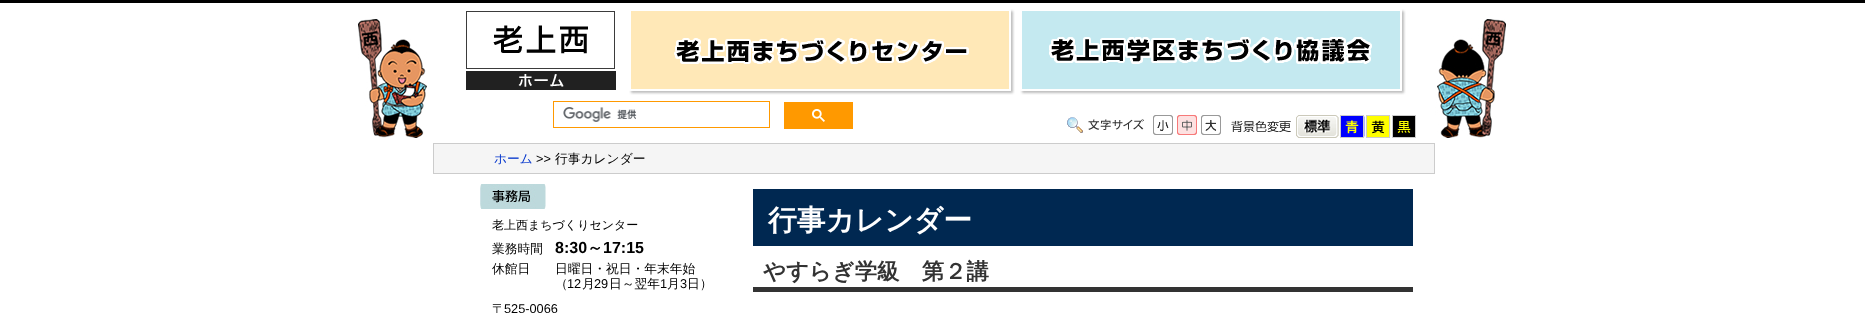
<svg xmlns="http://www.w3.org/2000/svg" width="1865" height="313">
<rect width="100%" height="100%" fill="#fff"/>
<rect width="1865" height="3" fill="#000"/>
<image x="358" y="19" width="1148" height="119" href="media/1.png"/>
<image x="466" y="11" width="150" height="79" href="media/2.png"/>
<image x="629" y="9" width="386" height="86" href="media/3.png"/>
<image x="1020" y="9" width="386" height="86" href="media/4.png"/>
<rect x="553.5" y="101.5" width="216" height="26" fill="none" stroke="#f90"/>
<image x="563" y="107" width="74" height="15" href="media/5.png"/>
<rect x="784" y="102" width="69" height="27" fill="#f90"/>
<image x="812" y="109" width="13" height="13" href="media/6.png"/>
<image x="1067" y="117" width="77" height="16" href="media/7.png"/>
<image x="1153" y="115" width="20" height="20" href="media/8.png"/>
<image x="1177" y="115" width="20" height="20" href="media/9.png"/>
<image x="1201" y="115" width="20" height="20" href="media/10.png"/>
<image x="1231" y="120" width="60" height="12" href="media/11.png"/>
<image x="1296" y="115" width="43" height="23" href="media/12.png"/>
<image x="1340" y="115" width="24" height="23" href="media/13.png"/>
<image x="1364" y="115" width="27" height="23" href="media/14.png"/>
<image x="1392" y="115" width="24" height="23" href="media/15.png"/>
<rect x="433.5" y="143.5" width="1001" height="30" fill="#f5f5f5" stroke="#ccc"/>
<text x="494" y="163" style="font-family:WenQuanYi Zen Hei;font-size:12.75px;font-weight:500;fill:#03c">ホーム</text>
<text x="536" y="163" style="font-family:Liberation Sans;font-size:12.75px;fill:#000">&gt;&gt;</text>
<text x="555" y="163" style="font-family:WenQuanYi Zen Hei;font-size:12.75px;font-weight:500;fill:#000">行事カレンダー</text>
<image x="480" y="184" width="66" height="25" href="media/16.png"/>
<text x="492" y="229" style="font-family:WenQuanYi Zen Hei;font-size:12px;font-weight:500;fill:#000">老上西まちづくりセンター</text>
<text x="492" y="253" style="font-family:WenQuanYi Zen Hei;font-size:12.75px;font-weight:500;fill:#000">業務時間</text>
<text x="555" y="253" style="font-family:Liberation Sans;font-size:16px;font-weight:bold;fill:#000">8:30</text>
<text x="587" y="253" style="font-family:WenQuanYi Zen Hei;font-size:16px;font-weight:bold;fill:#000">～</text>
<text x="603" y="253" style="font-family:Liberation Sans;font-size:16px;font-weight:bold;fill:#000">17:15</text>
<text x="492" y="273" style="font-family:WenQuanYi Zen Hei;font-size:12.75px;font-weight:500;fill:#000">休館日</text>
<text x="555" y="273" style="font-family:WenQuanYi Zen Hei;font-size:12.75px;font-weight:500;fill:#000">日曜日・祝日・年末年始</text>
<text x="555" y="288" style="font-family:WenQuanYi Zen Hei;font-size:12.75px;font-weight:500;fill:#000">（</text>
<text x="567" y="288" style="font-family:Liberation Sans;font-size:12.75px;fill:#000">12</text>
<text x="582" y="288" style="font-family:WenQuanYi Zen Hei;font-size:12.75px;font-weight:500;fill:#000">月</text>
<text x="594" y="288" style="font-family:Liberation Sans;font-size:12.75px;fill:#000">29</text>
<text x="609" y="288" style="font-family:WenQuanYi Zen Hei;font-size:12.75px;font-weight:500;fill:#000">日～翌年</text>
<text x="660" y="288" style="font-family:Liberation Sans;font-size:12.75px;fill:#000">1</text>
<text x="667" y="288" style="font-family:WenQuanYi Zen Hei;font-size:12.75px;font-weight:500;fill:#000">月</text>
<text x="680" y="288" style="font-family:Liberation Sans;font-size:12.75px;fill:#000">3</text>
<text x="687" y="288" style="font-family:WenQuanYi Zen Hei;font-size:12.75px;font-weight:500;fill:#000">日）</text>
<text x="492" y="313" style="font-family:WenQuanYi Zen Hei;font-size:12.75px;font-weight:500;fill:#000">〒</text>
<text x="504" y="313" style="font-family:Liberation Sans;font-size:12.75px;fill:#000">525-0066</text>
<rect x="753" y="189" width="660" height="57" fill="#002851"/>
<text x="768" y="230" style="font-family:WenQuanYi Zen Hei;font-size:28.75px;font-weight:bold;fill:#fff">行事カレンダー</text>
<rect x="753" y="287" width="660" height="5" fill="#333"/>
<text x="763" y="279" style="font-family:WenQuanYi Zen Hei;font-size:22.4px;font-weight:bold;fill:#333">やすらぎ学級　第２講</text>
</svg>
